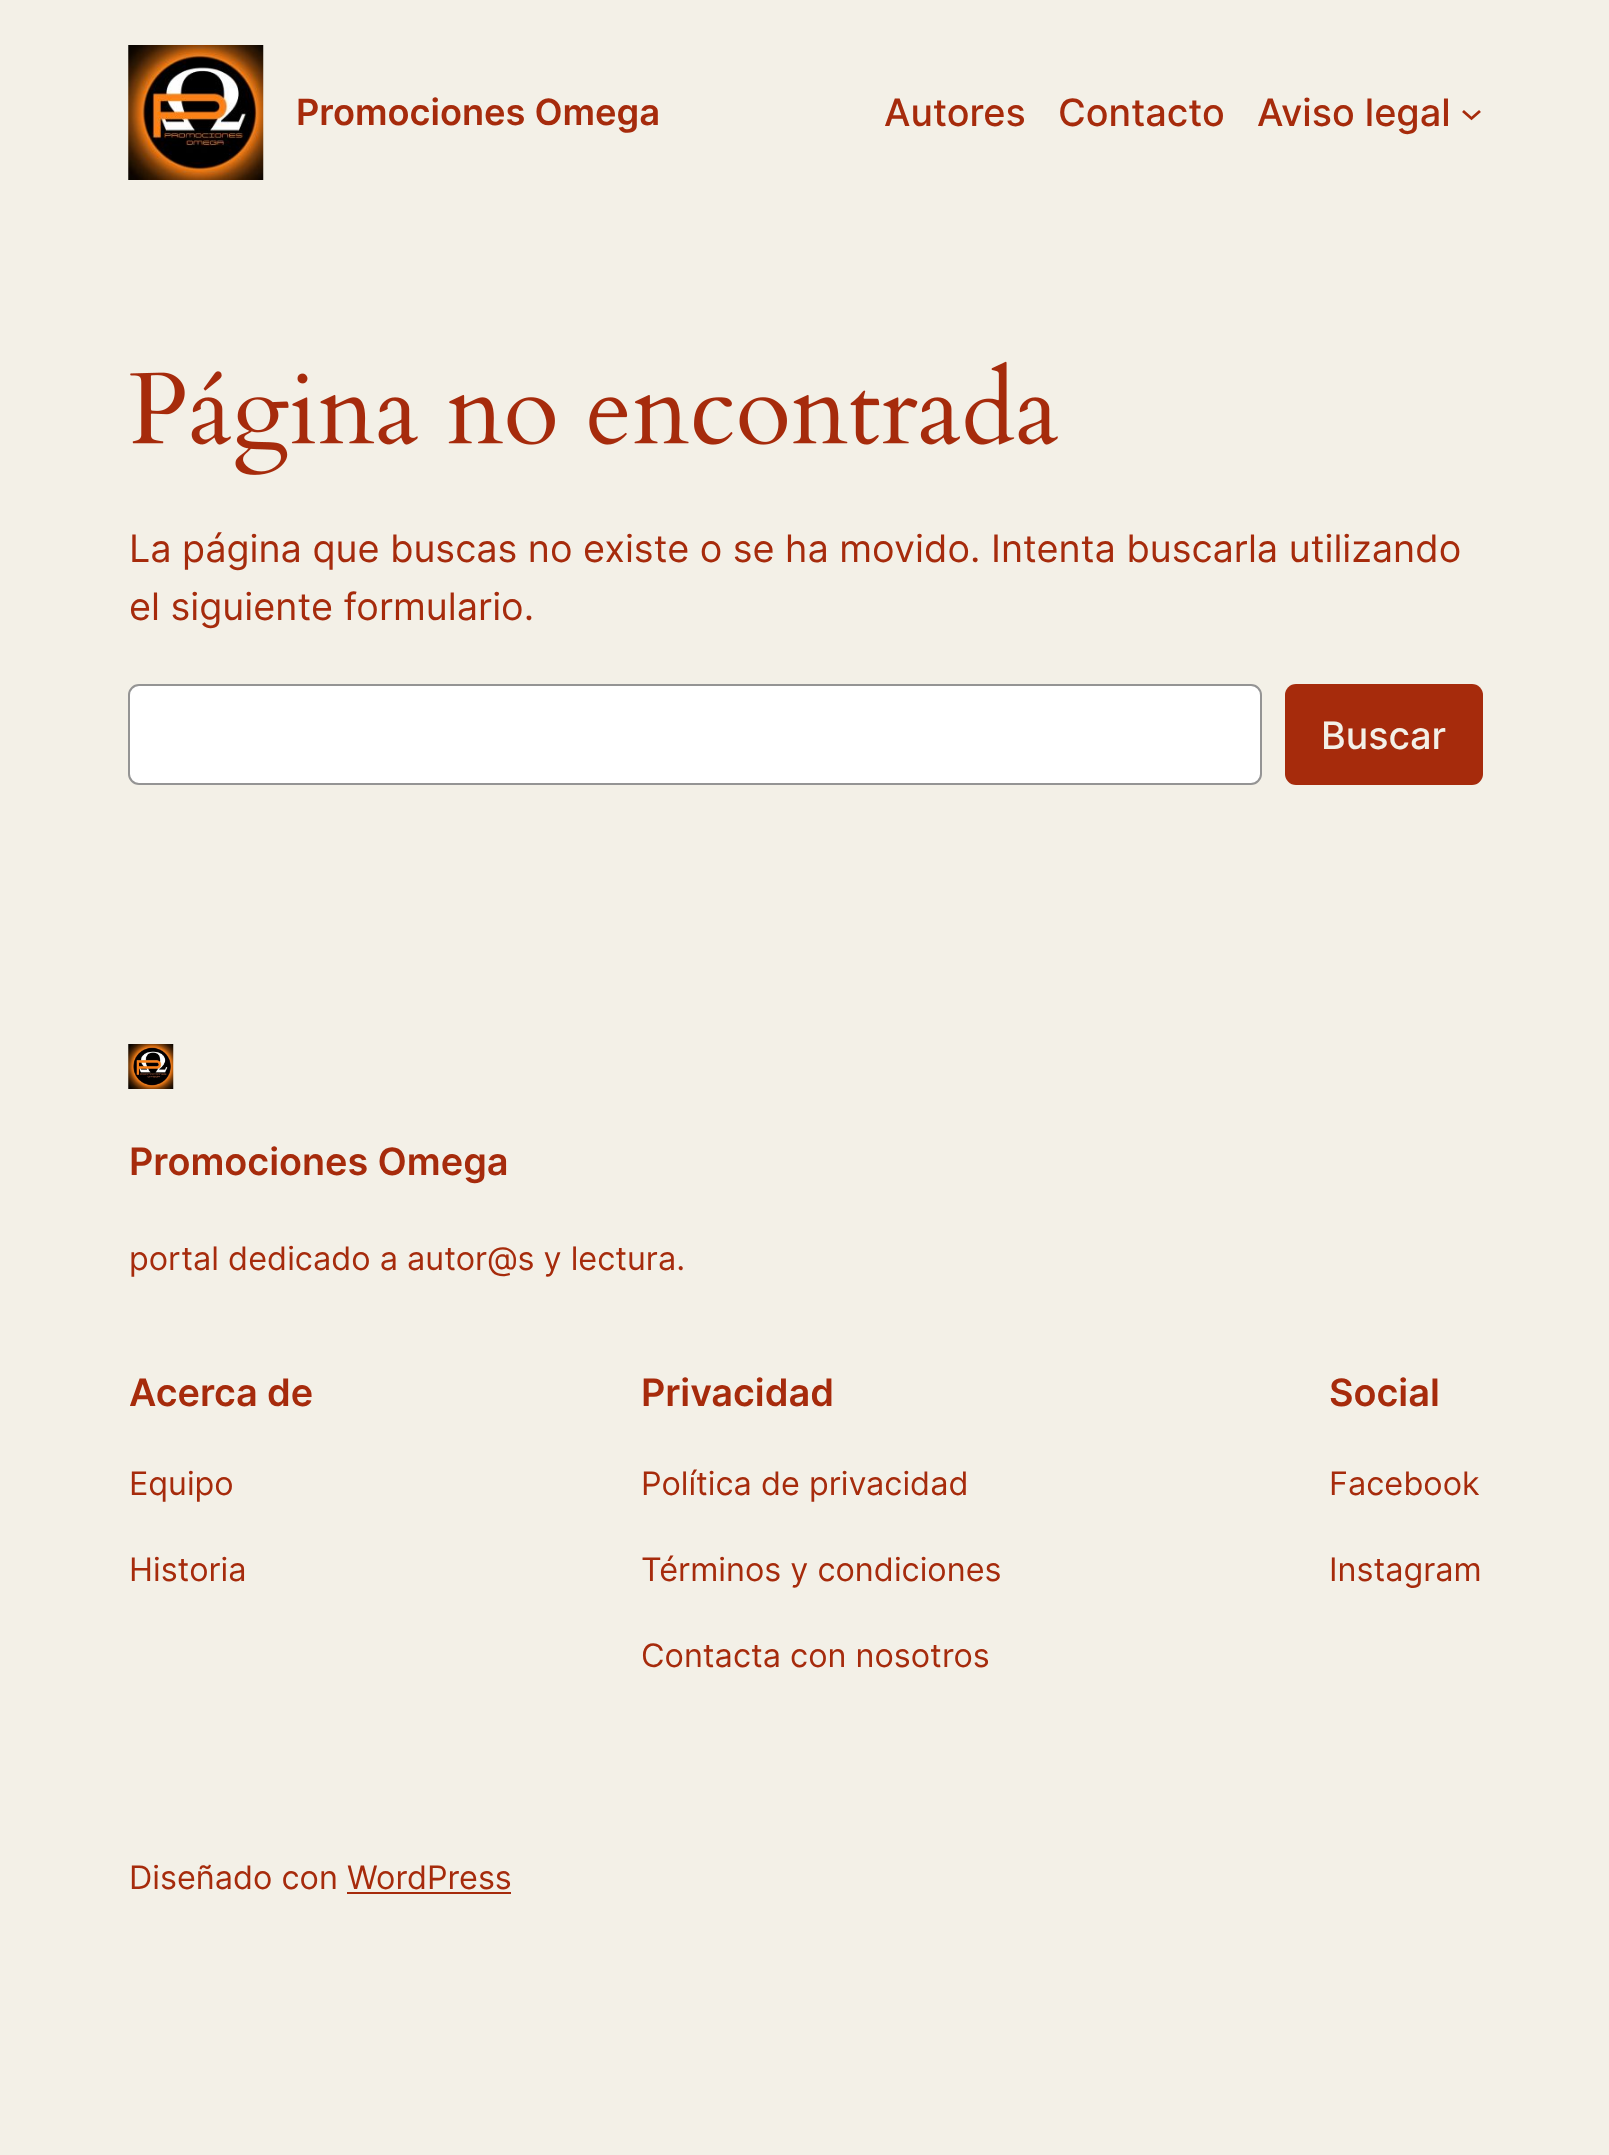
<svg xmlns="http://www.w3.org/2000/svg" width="1609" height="2155">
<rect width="100%" height="100%" fill="#f3f0e7"/>
<image x="128" y="45" width="136" height="135" href="media/1.png"/>
<text x="296" y="125" style="font-family:Inter;font-size:36.25px;font-weight:600;fill:#a62b0c">Promociones Omega</text>
<text x="884" y="126" style="font-family:Inter;font-size:37.8px;font-weight:500;fill:#a62b0c">Autores</text>
<text x="1058" y="126" style="font-family:Inter;font-size:37.8px;font-weight:500;fill:#a62b0c">Contacto</text>
<text x="1257" y="126" style="font-family:Inter;font-size:37.8px;font-weight:500;fill:#a62b0c">Aviso legal</text>
<path d="M1463 111l8.5 7.5l8.5-7.5" fill="none" stroke="#a62b0c" stroke-width="2.8"/>
<image x="130" y="361" width="928" height="114" href="media/2.png"/>
<text x="129" y="562" word-spacing="-0.1" style="font-family:Inter;font-size:37.8px;fill:#a62b0c">La página que buscas no existe o se ha movido. Intenta buscarla utilizando</text>
<text x="129" y="620" style="font-family:Inter;font-size:37.8px;fill:#a62b0c">el siguiente formulario.</text>
<rect x="129" y="685" width="1132" height="99" rx="10" fill="#fff" stroke="#949494" stroke-width="2"/>
<rect x="1285" y="684" width="198" height="101" rx="11" fill="#a62b0c"/>
<text x="1321" y="749" style="font-family:Inter;font-size:37.8px;font-weight:500;fill:#f3f0e7">Buscar</text>
<image x="128" y="1044" width="46" height="45" href="media/3.png"/>
<text x="129" y="1175" style="font-family:Inter;font-size:37.8px;font-weight:600;fill:#a62b0c">Promociones Omega</text>
<text x="129" y="1270" style="font-family:Inter;font-size:32.4px;fill:#a62b0c">portal dedicado a autor@s y lectura.</text>
<text x="129" y="1406" style="font-family:Inter;font-size:37.8px;font-weight:600;fill:#a62b0c">Acerca de</text>
<text x="129" y="1495" style="font-family:Inter;font-size:32.4px;fill:#a62b0c">Equipo</text>
<text x="129" y="1581" style="font-family:Inter;font-size:32.4px;fill:#a62b0c">Historia</text>
<text x="641" y="1406" style="font-family:Inter;font-size:37.8px;font-weight:600;fill:#a62b0c">Privacidad</text>
<text x="641" y="1495" style="font-family:Inter;font-size:32.4px;fill:#a62b0c">Política de privacidad</text>
<text x="641" y="1581" style="font-family:Inter;font-size:32.4px;fill:#a62b0c">Términos y condiciones</text>
<text x="641" y="1667" style="font-family:Inter;font-size:32.4px;fill:#a62b0c">Contacta con nosotros</text>
<text x="1329" y="1406" style="font-family:Inter;font-size:37.8px;font-weight:600;fill:#a62b0c">Social</text>
<text x="1329" y="1495" style="font-family:Inter;font-size:32.4px;fill:#a62b0c">Facebook</text>
<text x="1329" y="1581" style="font-family:Inter;font-size:32.4px;fill:#a62b0c">Instagram</text>
<text x="129" y="1889" style="font-family:Inter;font-size:32.4px;fill:#a62b0c">Diseñado con WordPress</text>
<rect x="347" y="1892" width="164" height="2" fill="#a62b0c"/>
</svg>
